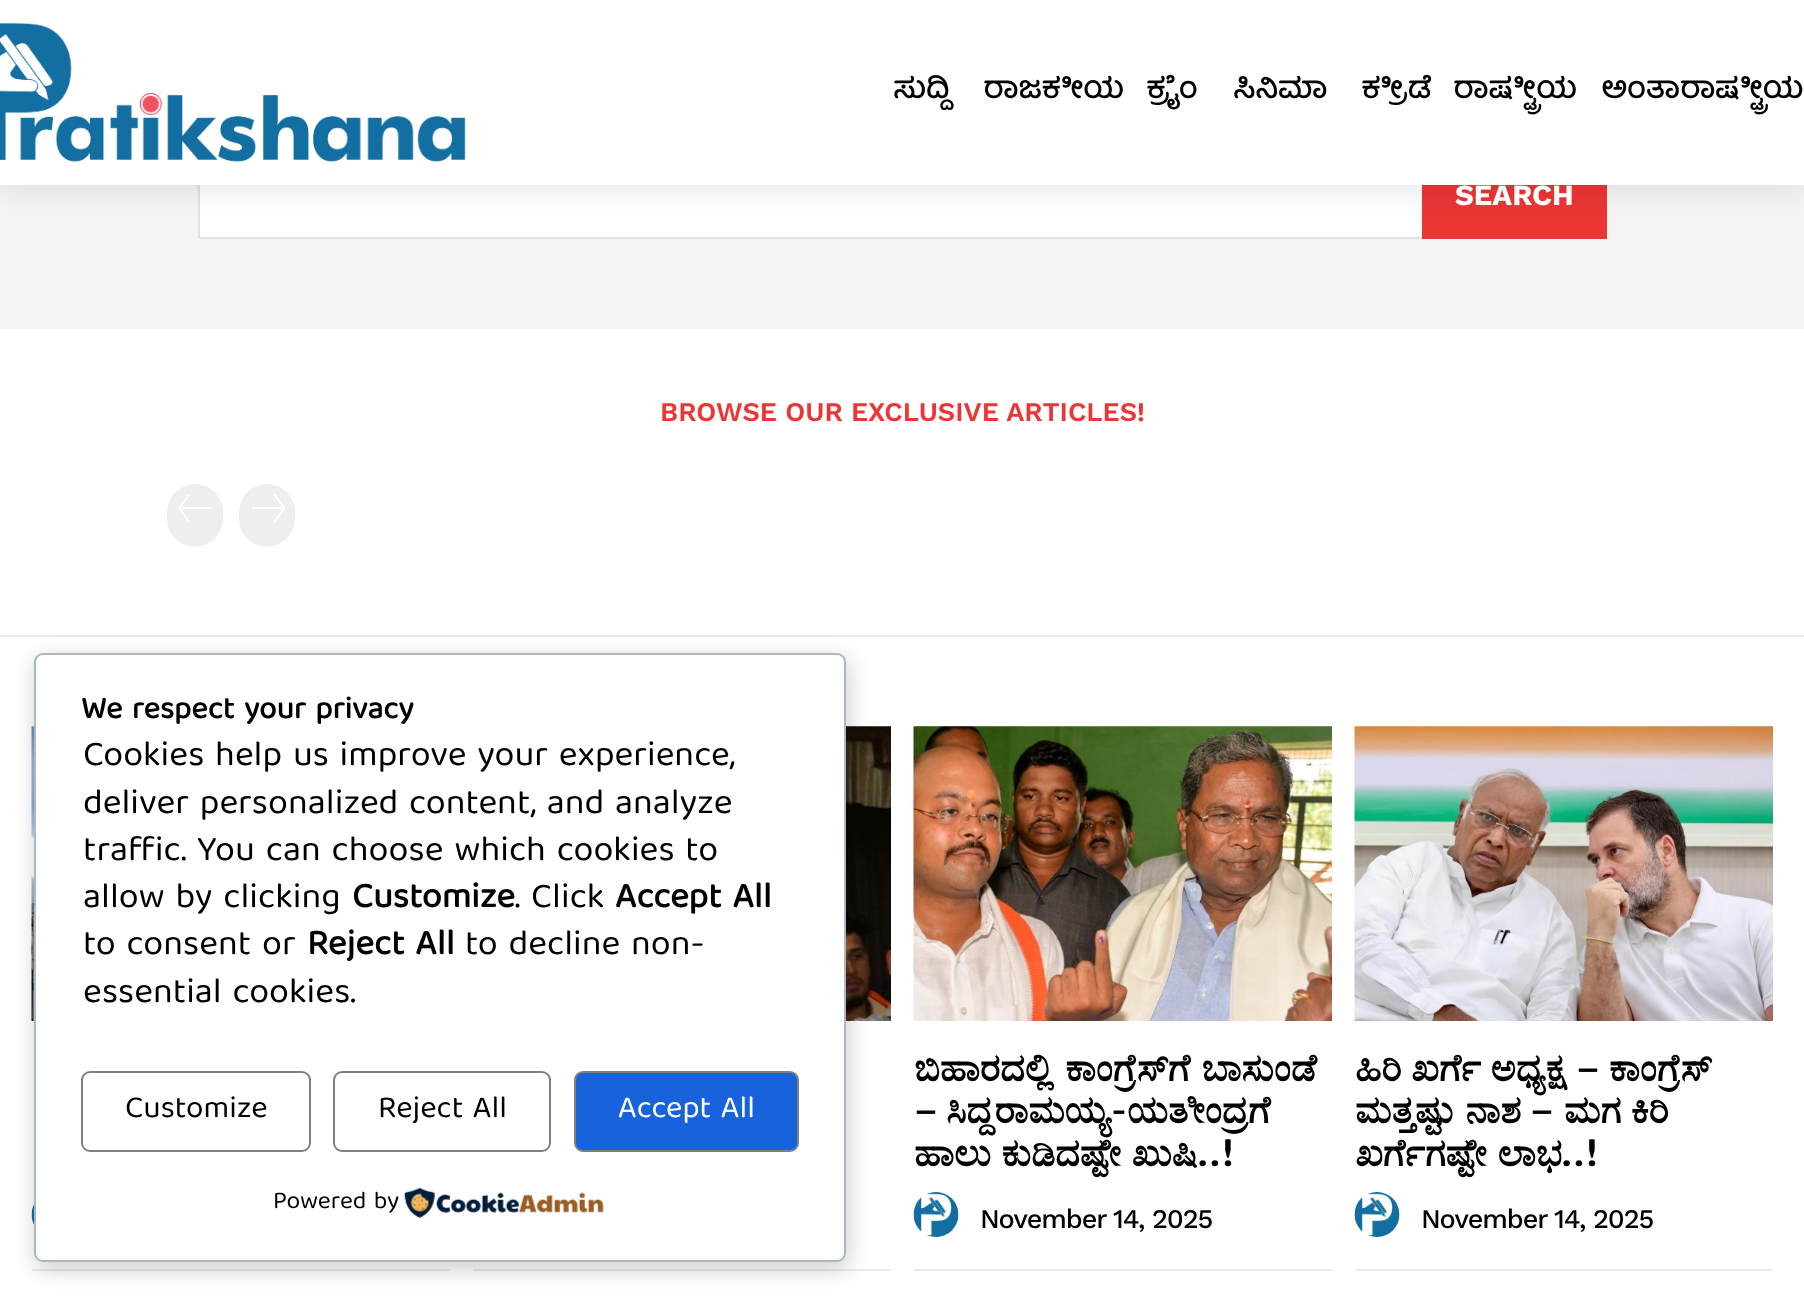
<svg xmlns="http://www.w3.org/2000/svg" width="1804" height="1306">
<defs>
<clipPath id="clip1"><path d="M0 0h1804v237h-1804zm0 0h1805v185h-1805z" clip-rule="evenodd"/></clipPath>
</defs>
<rect width="100%" height="100%" fill="#fff"/>
<rect y="635" width="1804" height="2" fill="#eaeaea"/>
<rect x="32" y="1269" width="418" height="2" fill="#eaeaea"/>
<image x="31" y="726" width="3" height="295" href="media/3.png"/>
<image x="31" y="1204" width="3" height="21" href="media/4.png"/>
<rect x="473" y="1269" width="418" height="2" fill="#eaeaea"/>
<image x="846" y="726" width="45" height="295" href="media/5.png"/>
<rect x="36" y="659" width="812" height="610" rx="9" fill="#00000033" filter="blur(11px)"/>
<rect x="35" y="654" width="810" height="607" rx="8" fill="#fff" stroke="#abb8c3" stroke-width="2"/>
<text x="81" y="718" style="font-family:'Baloo Tamma 2';font-size:31.5px;font-weight:bold;fill:#000">We respect your privacy</text>
<text x="83" y="765" style="font-family:'Baloo Tamma 2';font-size:36px;fill:#000">Cookies help us improve your experience,</text>
<text x="83" y="813" style="font-family:'Baloo Tamma 2';font-size:36px;fill:#000">deliver personalized content, and analyze</text>
<text x="83" y="860" style="font-family:'Baloo Tamma 2';font-size:36px;fill:#000">traffic. You can choose which cookies to</text>
<text x="83" y="907" style="font-family:'Baloo Tamma 2';font-size:36px;fill:#000">allow by clicking</text>
<text x="352" y="907" style="font-family:'Baloo Tamma 2';font-size:36px;font-weight:bold;fill:#000">Customize</text>
<text x="515" y="907" style="font-family:'Baloo Tamma 2';font-size:36px;fill:#000">. Click</text>
<text x="615" y="907" style="font-family:'Baloo Tamma 2';font-size:36px;font-weight:bold;fill:#000">Accept All</text>
<text x="83" y="954" style="font-family:'Baloo Tamma 2';font-size:36px;fill:#000">to consent or</text>
<text x="307" y="954" style="font-family:'Baloo Tamma 2';font-size:36px;font-weight:bold;fill:#000">Reject All</text>
<text x="465" y="954" style="font-family:'Baloo Tamma 2';font-size:36px;fill:#000">to decline non-</text>
<text x="83" y="1002" style="font-family:'Baloo Tamma 2';font-size:36px;fill:#000">essential cookies.</text>
<rect x="82" y="1072" width="228" height="79" rx="8" fill="none" stroke="#808080" stroke-width="2"/>
<text x="125" y="1117" style="font-family:'Baloo Tamma 2';font-size:31.5px;fill:#000">Customize</text>
<rect x="334" y="1072" width="216" height="79" rx="8" fill="none" stroke="#808080" stroke-width="2"/>
<text x="378" y="1117" style="font-family:'Baloo Tamma 2';font-size:31.5px;fill:#000">Reject All</text>
<rect x="575" y="1072" width="223" height="79" rx="8" fill="#1863dc" stroke="#808080" stroke-width="2"/>
<text x="618" y="1117" style="font-family:'Baloo Tamma 2';font-size:31.5px;fill:#fff">Accept All</text>
<text x="273" y="1208" style="font-family:'Baloo Tamma 2';font-size:24.75px;fill:#000">Powered by</text>
<image x="404" y="1187" width="200" height="31" href="media/1.png"/>
<rect y="185" width="1804" height="144" fill="#f4f4f4"/>
<rect x="200" y="185" width="1222" height="52" fill="#fff"/>
<rect x="199" y="159" width="1407" height="79" fill="none" stroke="#e1e1e1" stroke-width="2"/>
<rect x="198" y="158" width="1409" height="27" fill="#fff"/>
<image x="0" y="22" width="466" height="140" href="media/2.png"/>
<rect x="1422" y="185" width="185" height="54" fill="#ec3535"/>
<g clip-path="url(#clip1)">
<rect width="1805" height="185" fill="#0000001f" filter="blur(17px)"/>
</g>
<text x="893" y="98" style="font-family:'Baloo Tamma 2';font-size:29.25px;font-weight:bold;fill:#000">ಸುದ್ದಿ</text>
<text x="983" y="98" style="font-family:'Baloo Tamma 2';font-size:29.25px;font-weight:bold;fill:#000">ರಾಜಕೀಯ</text>
<text x="1146" y="98" style="font-family:'Baloo Tamma 2';font-size:29.25px;font-weight:bold;fill:#000">ಕ್ರೈಂ</text>
<text x="1233" y="98" style="font-family:'Baloo Tamma 2';font-size:29.25px;font-weight:bold;fill:#000">ಸಿನಿಮಾ</text>
<text x="1361" y="98" style="font-family:'Baloo Tamma 2';font-size:29.25px;font-weight:bold;fill:#000">ಕ್ರೀಡೆ</text>
<text x="1453" y="98" style="font-family:'Baloo Tamma 2';font-size:29.25px;font-weight:bold;fill:#000">ರಾಷ್ಟ್ರೀಯ</text>
<text x="1601" y="98" style="font-family:'Baloo Tamma 2';font-size:29.25px;font-weight:bold;fill:#000">ಅಂತಾರಾಷ್ಟ್ರೀಯ</text>
<text x="1455" y="205" style="font-family:Work Sans;font-size:29.25px;font-weight:bold;fill:#fff">SEARCH</text>
<text x="660" y="421" style="font-family:Work Sans;font-size:27px;font-weight:600;fill:#ec3535">BROWSE OUR EXCLUSIVE ARTICLES!</text>
<rect x="167" y="484" width="56" height="63" rx="28" fill="#eee"/>
<path d="M190 521.5l-9-12.5h30.5v-2h-30.5l9-12l-1.5-1l-10.5 14l10.5 14.5z" fill="#fff"/>
<rect x="239" y="484" width="56" height="63" rx="28" fill="#eee"/>
<path d="M273.5 521.5l1.5 1l10.5-14.5l-10.5-14l-1.5 1l9 12h-30.5v2h30.5z" fill="#fff"/>
<rect x="914" y="1269" width="418" height="2" fill="#eaeaea"/>
<image x="913" y="726" width="419" height="295" href="media/6.png"/>
<text x="914" y="1081" word-spacing="2" style="font-family:FreeSerif;font-size:38.25px;font-weight:bold;fill:#000">ಬಿಹಾರದಲ್ಲಿ ಕಾಂಗ್ರೆಸ್‌ಗೆ ಬಾಸುಂಡೆ</text>
<text x="914" y="1123" style="font-family:PT Serif;font-size:38.25px;font-weight:bold;fill:#000">–</text>
<text x="946" y="1123" style="font-family:FreeSerif;font-size:38.25px;font-weight:bold;fill:#000">ಸಿದ್ದರಾಮಯ್ಯ</text>
<text x="1111" y="1123" style="font-family:PT Serif;font-size:38.25px;font-weight:bold;fill:#000">-</text>
<text x="1127" y="1123" style="font-family:FreeSerif;font-size:38.25px;font-weight:bold;fill:#000">ಯತೀಂದ್ರಗೆ</text>
<text x="914" y="1166" word-spacing="1" style="font-family:FreeSerif;font-size:38.25px;font-weight:bold;fill:#000">ಹಾಲು ಕುಡಿದಷ್ಟೇ ಖುಷಿ</text>
<text x="1197" y="1166" style="font-family:PT Serif;font-size:38.25px;font-weight:bold;fill:#000">..!</text>
<image x="913" y="1192" width="46" height="45" href="media/7.png"/>
<text x="980" y="1228" style="font-family:Work Sans;font-size:27px;font-weight:500;letter-spacing:-1.1px;fill:#000">November 14, 2025</text>
<rect x="1355" y="1269" width="418" height="2" fill="#eaeaea"/>
<image x="1354" y="726" width="419" height="295" href="media/8.png"/>
<text x="1355" y="1081" style="font-family:FreeSerif;font-size:38.25px;font-weight:bold;fill:#000">ಹಿರಿ ಖರ್ಗೆ ಅಧ್ಯಕ್ಷ</text>
<text x="1576" y="1081" style="font-family:PT Serif;font-size:38.25px;font-weight:bold;fill:#000">–</text>
<text x="1609" y="1081" style="font-family:FreeSerif;font-size:38.25px;font-weight:bold;fill:#000">ಕಾಂಗ್ರೆಸ್‌</text>
<text x="1355" y="1123" style="font-family:FreeSerif;font-size:38.25px;font-weight:bold;fill:#000">ಮತ್ತಷ್ಟು ನಾಶ</text>
<text x="1530" y="1123" style="font-family:PT Serif;font-size:38.25px;font-weight:bold;fill:#000">–</text>
<text x="1564" y="1123" style="font-family:FreeSerif;font-size:38.25px;font-weight:bold;fill:#000">ಮಗ ಕಿರಿ</text>
<text x="1355" y="1166" word-spacing="1" style="font-family:FreeSerif;font-size:38.25px;font-weight:bold;fill:#000">ಖರ್ಗೆಗಷ್ಟೇ ಲಾಭ</text>
<text x="1561" y="1166" style="font-family:PT Serif;font-size:38.25px;font-weight:bold;fill:#000">..!</text>
<image x="1354" y="1192" width="46" height="45" href="media/7.png"/>
<text x="1421" y="1228" style="font-family:Work Sans;font-size:27px;font-weight:500;letter-spacing:-1.1px;fill:#000">November 14, 2025</text>
</svg>
